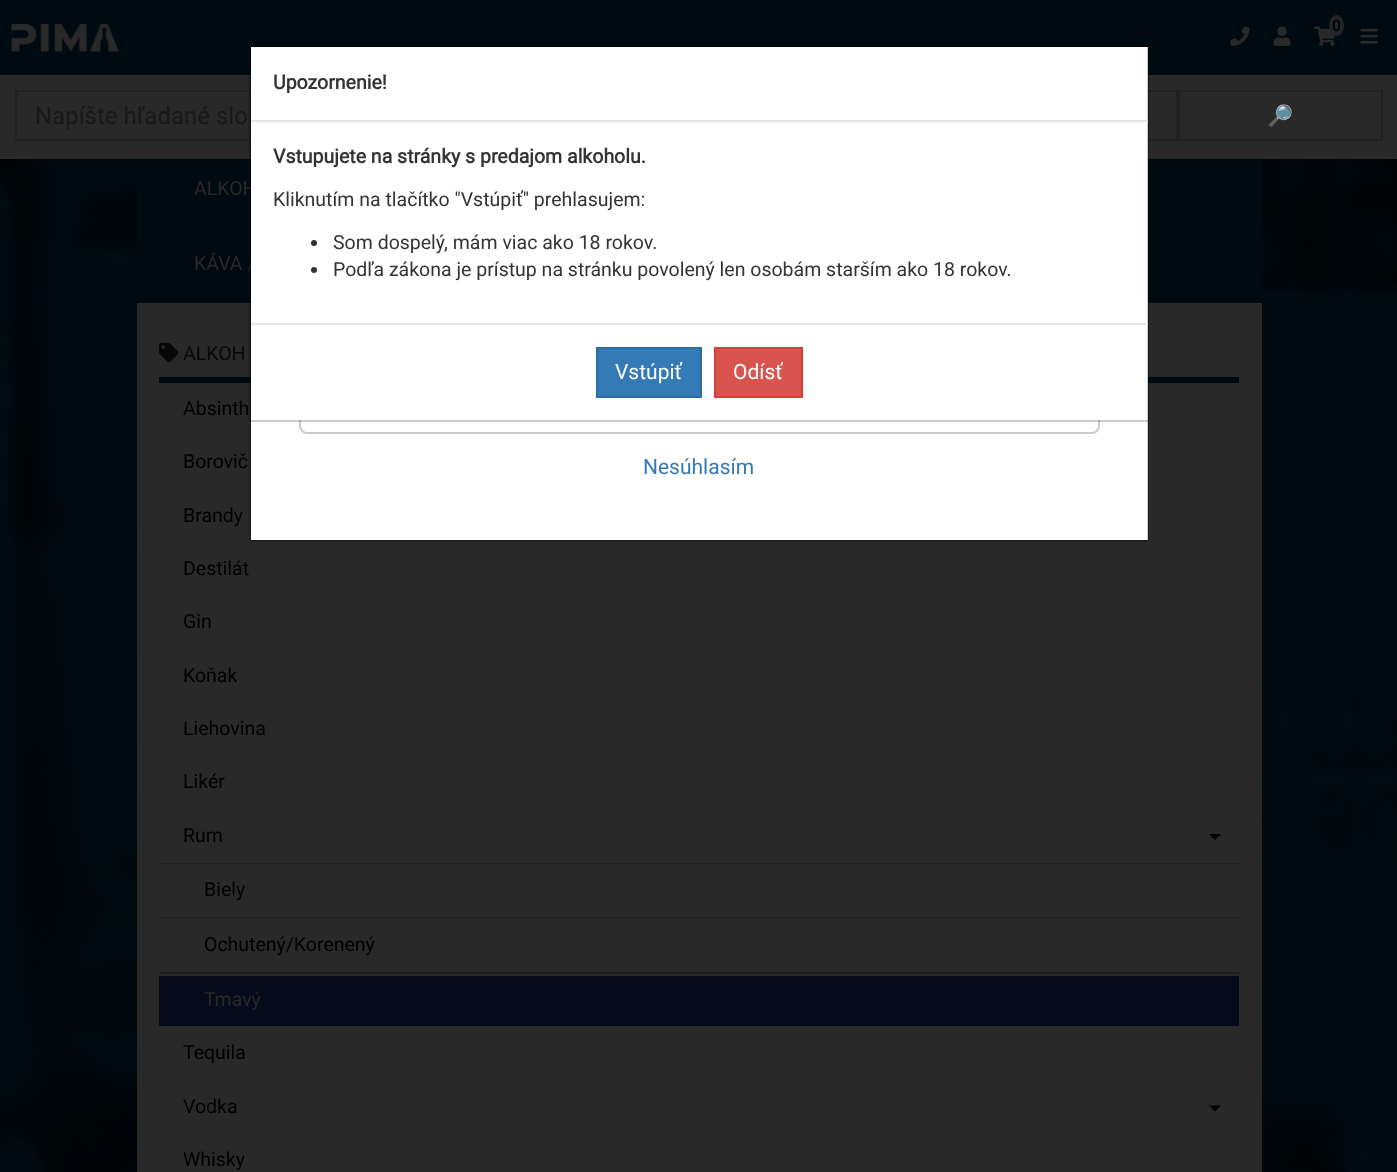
<svg xmlns="http://www.w3.org/2000/svg" width="1397" height="1172">
<rect width="100%" height="100%" fill="#fff"/>
<image x="0" y="159" width="1397" height="1013" href="media/1.png"/>
<rect width="1397" height="75" fill="#000a11"/>
<image x="1230" y="26" width="20" height="20" href="media/2.png"/>
<image x="1273" y="26" width="18" height="20" href="media/3.png"/>
<image x="1314" y="26" width="21" height="20" href="media/4.png"/>
<ellipse cx="1336.5" cy="25.5" rx="7.5" ry="10.5" fill="#232529"/>
<text x="1332" y="31" style="font-family:Roboto;font-size:15px;font-weight:bold;fill:#000">0</text>
<image x="1360" y="28" width="18" height="16" href="media/5.png"/>
<rect y="75" width="1397" height="84" fill="#292929"/>
<rect x="16" y="91" width="1161" height="49" fill="none" stroke="#212121" stroke-width="2"/>
<text x="35" y="124" style="font-family:Roboto;font-size:24px;fill:#181818">Napíšte hľadané slo</text>
<rect x="1179" y="91" width="203" height="49" fill="none" stroke="#212121" stroke-width="2"/>
<text x="1267" y="123" style="font-family:Noto Color Emoji;font-size:21px;fill:#080808">🔎</text>
<image x="11" y="23" width="109" height="30" href="media/6.png"/>
<rect x="137" y="159" width="1125" height="144" fill="#000a11"/>
<text x="194" y="195" style="font-family:Roboto;font-size:19.5px;fill:#292929">ALKOH</text>
<text x="194" y="270" style="font-family:Roboto;font-size:19.5px;fill:#292929">KÁVA /</text>
<rect x="137" y="303" width="1125" height="869" fill="#292929"/>
<rect x="159" y="377" width="1080" height="6" fill="#000a11"/>
<rect x="251" y="420" width="897" height="120" fill="#fff"/>
<rect x="250" y="46" width="898" height="495" fill="none" stroke="#00000033" stroke-width="2"/>
<rect x="300" y="384" width="799" height="49" rx="7" fill="none" stroke="#ccc" stroke-width="2"/>
<rect x="251" y="47" width="897" height="373" fill="#fff"/>
<rect x="250" y="46" width="898" height="375" fill="none" stroke="#00000033" stroke-width="2"/>
<rect x="251" y="120" width="897" height="2" fill="#e5e5e5"/>
<text x="273" y="89" style="font-family:Roboto;font-size:19.5px;font-weight:bold;fill:#333">Upozornenie!</text>
<text x="273" y="163" style="font-family:Roboto;font-size:19.5px;font-weight:bold;fill:#333">Vstupujete na stránky s predajom alkoholu.</text>
<text x="273" y="206" style="font-family:Roboto;font-size:19.5px;fill:#333">Kliknutím na tlačítko "Vstúpiť" prehlasujem:</text>
<circle cx="314" cy="243" r="3" fill="#333"/>
<text x="333" y="249" style="font-family:Roboto;font-size:19.5px;fill:#333">Som dospelý, mám viac ako 18 rokov.</text>
<circle cx="314" cy="270" r="3" fill="#333"/>
<text x="333" y="276" style="font-family:Roboto;font-size:19.5px;fill:#333">Podľa zákona je prístup na stránku povolený len osobám starším ako 18 rokov.</text>
<rect x="251" y="323" width="897" height="2" fill="#e5e5e5"/>
<rect x="597" y="348" width="104" height="49" fill="#337ab7" stroke="#2e6da4" stroke-width="2"/>
<text x="615" y="379" style="font-family:Roboto;font-size:21px;fill:#fff">Vstúpiť</text>
<rect x="715" y="348" width="87" height="49" fill="#d9534f" stroke="#d43f3a" stroke-width="2"/>
<text x="733" y="379" style="font-family:Roboto;font-size:21px;fill:#fff">Odísť</text>
<image x="159" y="342" width="20" height="21" href="media/7.png"/>
<text x="183" y="360" style="font-family:Roboto;font-size:19.5px;fill:#080808">ALKOH</text>
<text x="183" y="415" style="font-family:Roboto;font-size:19.5px;fill:#000">Absinth</text>
<text x="183" y="468" style="font-family:Roboto;font-size:19.5px;fill:#000">Borovič</text>
<text x="183" y="522" style="font-family:Roboto;font-size:19.5px;fill:#000">Brandy</text>
<text x="183" y="575" style="font-family:Roboto;font-size:19.5px;fill:#000">Destilát</text>
<text x="183" y="628" style="font-family:Roboto;font-size:19.5px;fill:#000">Gin</text>
<text x="183" y="682" style="font-family:Roboto;font-size:19.5px;fill:#000">Koňak</text>
<text x="183" y="735" style="font-family:Roboto;font-size:19.5px;fill:#000">Liehovina</text>
<text x="183" y="788" style="font-family:Roboto;font-size:19.5px;fill:#000">Likér</text>
<text x="183" y="842" style="font-family:Roboto;font-size:19.5px;fill:#000">Rum</text>
<path d="M1209 834h12l-6 6z" fill="#000"/>
<rect x="159" y="863" width="1080" height="1" fill="#1f1f1f"/>
<text x="204" y="896" style="font-family:Roboto;font-size:19.5px;fill:#000">Biely</text>
<rect x="159" y="917" width="1080" height="1" fill="#1f1f1f"/>
<text x="204" y="951" style="font-family:Roboto;font-size:19.5px;fill:#000">Ochutený/Korenený</text>
<rect x="159" y="972" width="1080" height="2" fill="#1f1f1f"/>
<rect x="159" y="976" width="1080" height="50" fill="#060b1b"/>
<text x="204" y="1006" style="font-family:Roboto;font-size:19.5px;fill:#292929">Tmavý</text>
<text x="183" y="1059" style="font-family:Roboto;font-size:19.5px;fill:#000">Tequila</text>
<text x="183" y="1113" style="font-family:Roboto;font-size:19.5px;fill:#000">Vodka</text>
<path d="M1209 1105.5h12l-6 6z" fill="#000"/>
<text x="183" y="1166" style="font-family:Roboto;font-size:19.5px;fill:#000">Whisky</text>
<text x="643" y="474" style="font-family:Roboto;font-size:21px;fill:#337ab7">Nesúhlasím</text>
</svg>
